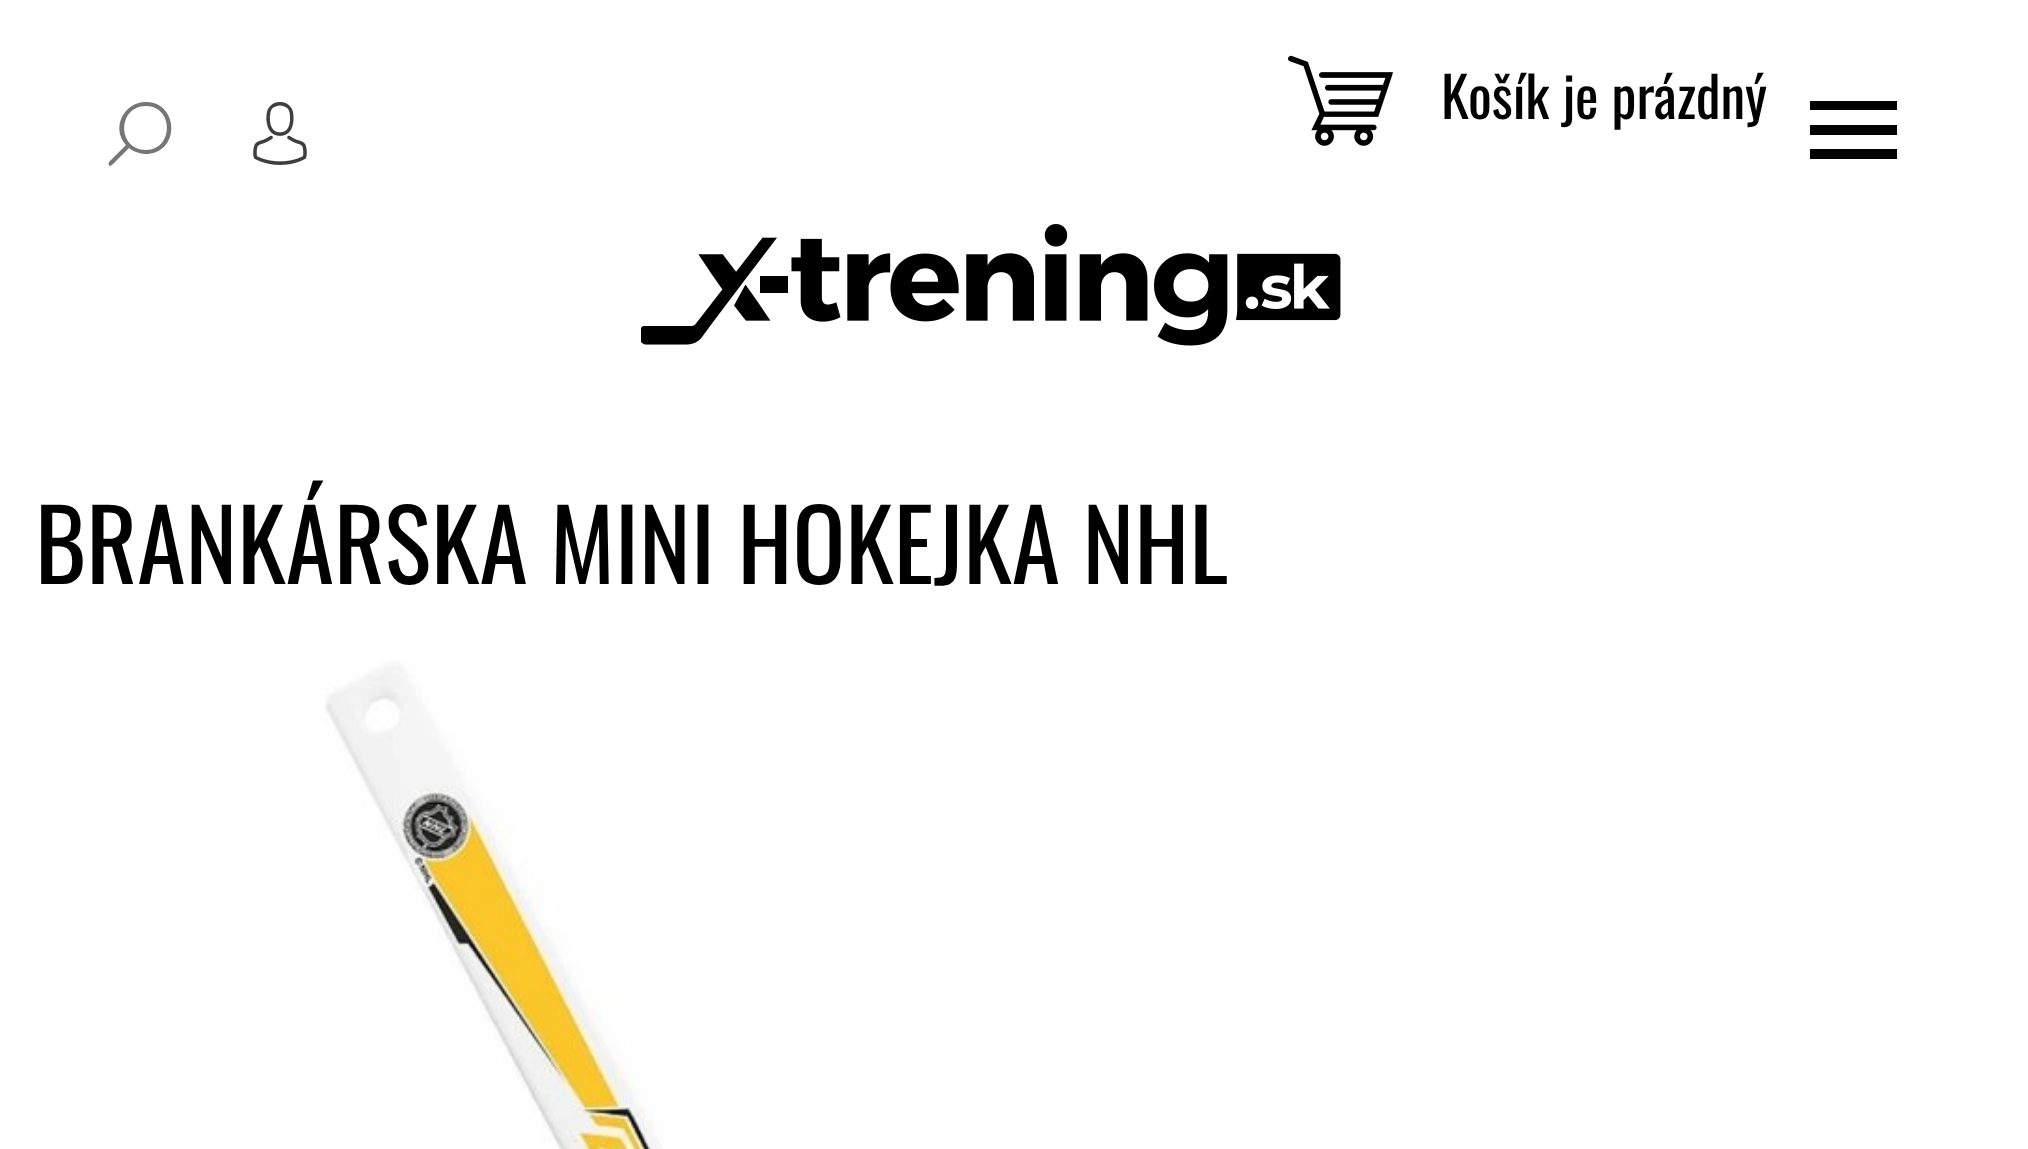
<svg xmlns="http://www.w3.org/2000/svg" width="2028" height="1149">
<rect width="100%" height="100%" fill="#fff"/>
<image x="1288" y="55" width="105" height="91" href="media/1.png"/>
<text x="1441" y="119" style="font-family:Oswald;font-size:56px;fill:#000">Košík je prázdný</text>
<image x="641" y="224" width="700" height="122" href="media/2.png"/>
<path d="M146 102c-23 0-35 27-20 43l-17 17c-1 2 0 4 1 4l2-1l17-17c5 4 12 6 19 6c33-3 30-52-2-52zm0 4c28 0 28 44 0 44c-29 0-29-44 0-44z" fill="#767676"/>
<image x="253" y="101" width="54" height="64" href="media/3.png"/>
<path d="M1810 159h87v-10h-87zm0-24h87v-10h-87zm0-34v9h87v-9z" fill="#000"/>
<text x="35" y="584" style="font-family:Oswald;font-size:98px;fill:#000">BRANKÁRSKA MINI HOKEJKA NHL</text>
<image x="324" y="660" width="340" height="489" href="media/4.png"/>
</svg>
